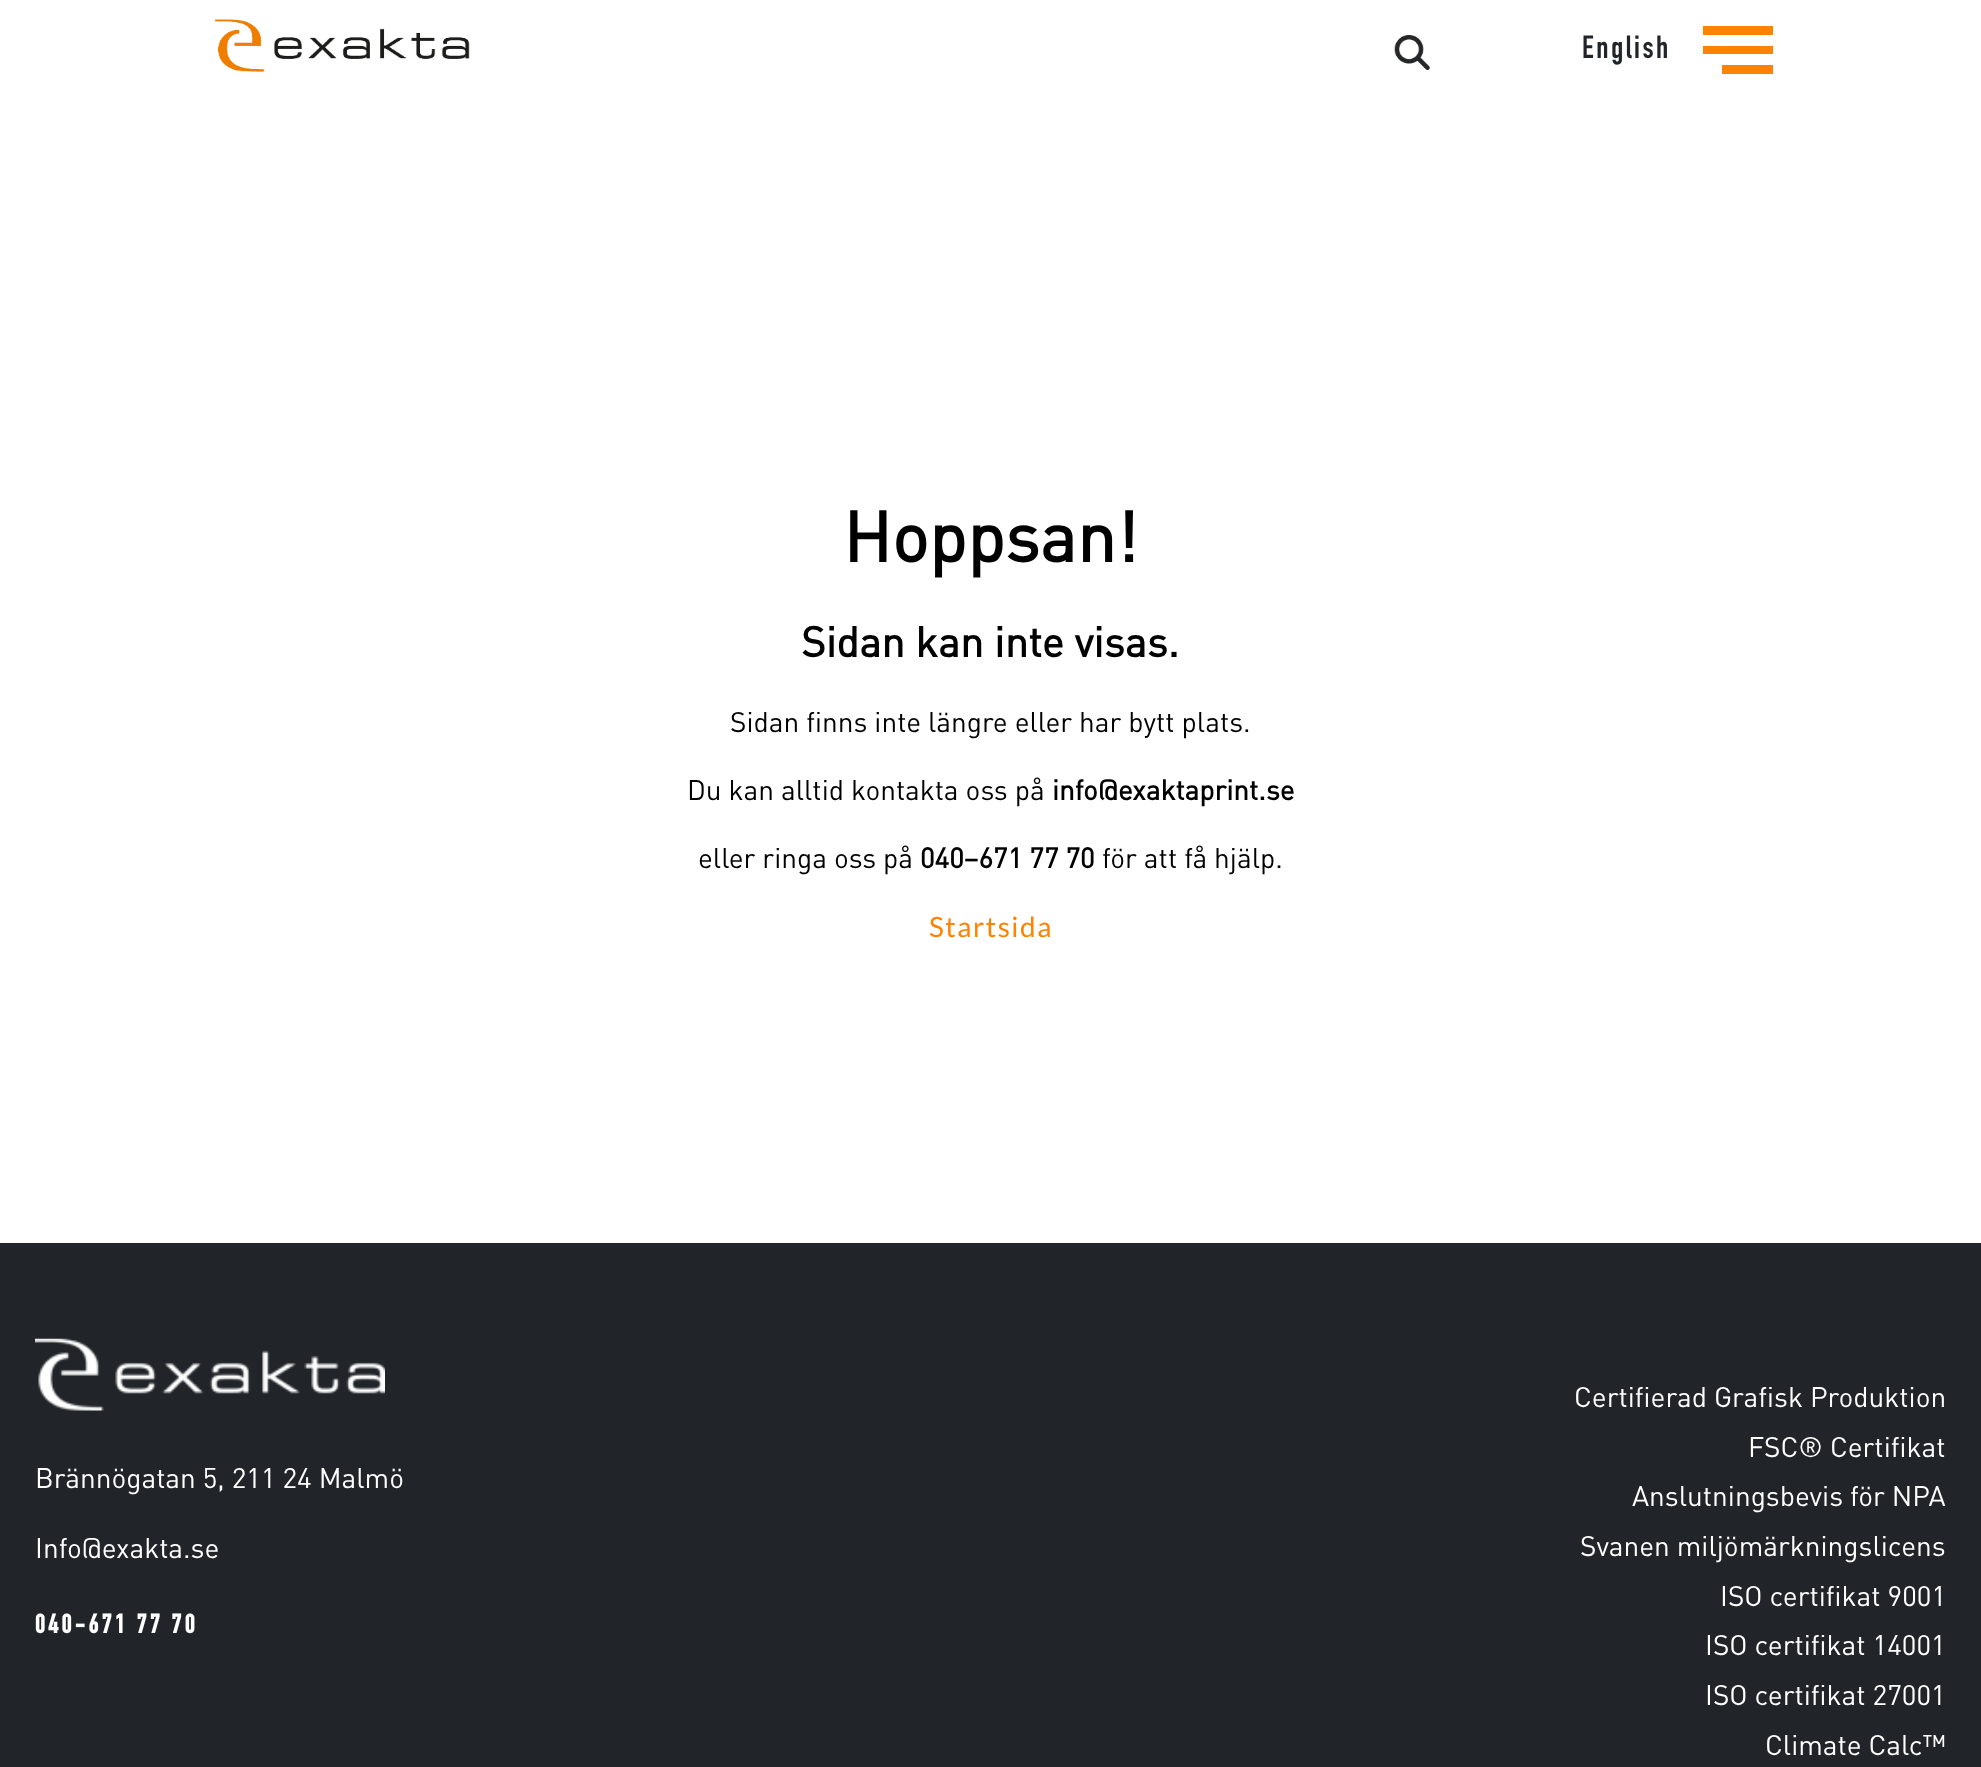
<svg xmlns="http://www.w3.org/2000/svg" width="1981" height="1767">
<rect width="100%" height="100%" fill="#fff"/>
<image x="215" y="19" width="255" height="53" href="media/1.png"/>
<image x="1394" y="35" width="36" height="35" href="media/2.png"/>
<text x="1582" y="58" style="font-family:'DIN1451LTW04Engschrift';font-size:31.5px;letter-spacing:2.5px;fill:#212529">English</text>
<rect x="1703" y="46" width="70" height="8" fill="#ff8200"/>
<rect x="1703" y="26" width="70" height="9" fill="#ff8200"/>
<rect x="1722" y="65" width="51" height="9" fill="#ff8200"/>
<text x="843" y="562" style="font-family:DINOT;font-size:70px;font-weight:bold;fill:#000">Hoppsan!</text>
<text x="801" y="657" style="font-family:DINOT;font-size:42px;font-weight:bold;fill:#000">Sidan kan inte visas.</text>
<text x="730" y="732" style="font-family:DINOT;font-size:28px;fill:#000">Sidan finns inte längre eller har bytt plats.</text>
<text x="687" y="800" style="font-family:DINOT;font-size:28px;fill:#000">Du kan alltid kontakta oss på</text>
<text x="1052" y="800" style="font-family:DINOT;font-size:28px;font-weight:bold;fill:#000">info@exaktaprint.se</text>
<text x="698" y="868" style="font-family:DINOT;font-size:28px;fill:#000">eller ringa oss på</text>
<text x="920" y="868" style="font-family:DINOT;font-size:28px;font-weight:bold;fill:#000">040–671 77 70</text>
<text x="1102" y="868" style="font-family:DINOT;font-size:28px;fill:#000">för att få hjälp.</text>
<text x="929" y="937" style="font-family:Lato;font-size:28px;letter-spacing:1.5px;fill:#ff8200">Startsida</text>
<rect y="1243" width="1981" height="524" fill="#212529"/>
<image x="35" y="1338" width="350" height="73" href="media/3.png"/>
<text x="35" y="1488" style="font-family:DINOT;font-size:28px;fill:#fff">Brännögatan 5, 211 24 Malmö</text>
<text x="35" y="1558" style="font-family:DINOT;font-size:28px;fill:#fff">Info@exakta.se</text>
<text x="35" y="1633" style="font-family:'DIN1451LTW04Engschrift';font-size:26.25px;font-weight:bold;letter-spacing:3.5px;fill:#fff">040-671 77 70</text>
<text x="1574" y="1407" style="font-family:DINOT;font-size:28px;fill:#fff">Certifierad Grafisk Produktion</text>
<text x="1748" y="1457" style="font-family:DINOT;font-size:28px;fill:#fff">FSC® Certifikat</text>
<text x="1632" y="1506" style="font-family:DINOT;font-size:28px;fill:#fff">Anslutningsbevis för NPA</text>
<text x="1580" y="1556" style="font-family:DINOT;font-size:28px;fill:#fff">Svanen miljömärkningslicens</text>
<text x="1720" y="1606" style="font-family:DINOT;font-size:28px;fill:#fff">ISO certifikat 9001</text>
<text x="1705" y="1655" style="font-family:DINOT;font-size:28px;fill:#fff">ISO certifikat 14001</text>
<text x="1705" y="1705" style="font-family:DINOT;font-size:28px;fill:#fff">ISO certifikat 27001</text>
<text x="1765" y="1755" style="font-family:DINOT;font-size:28px;fill:#fff">Climate Calc™</text>
</svg>
